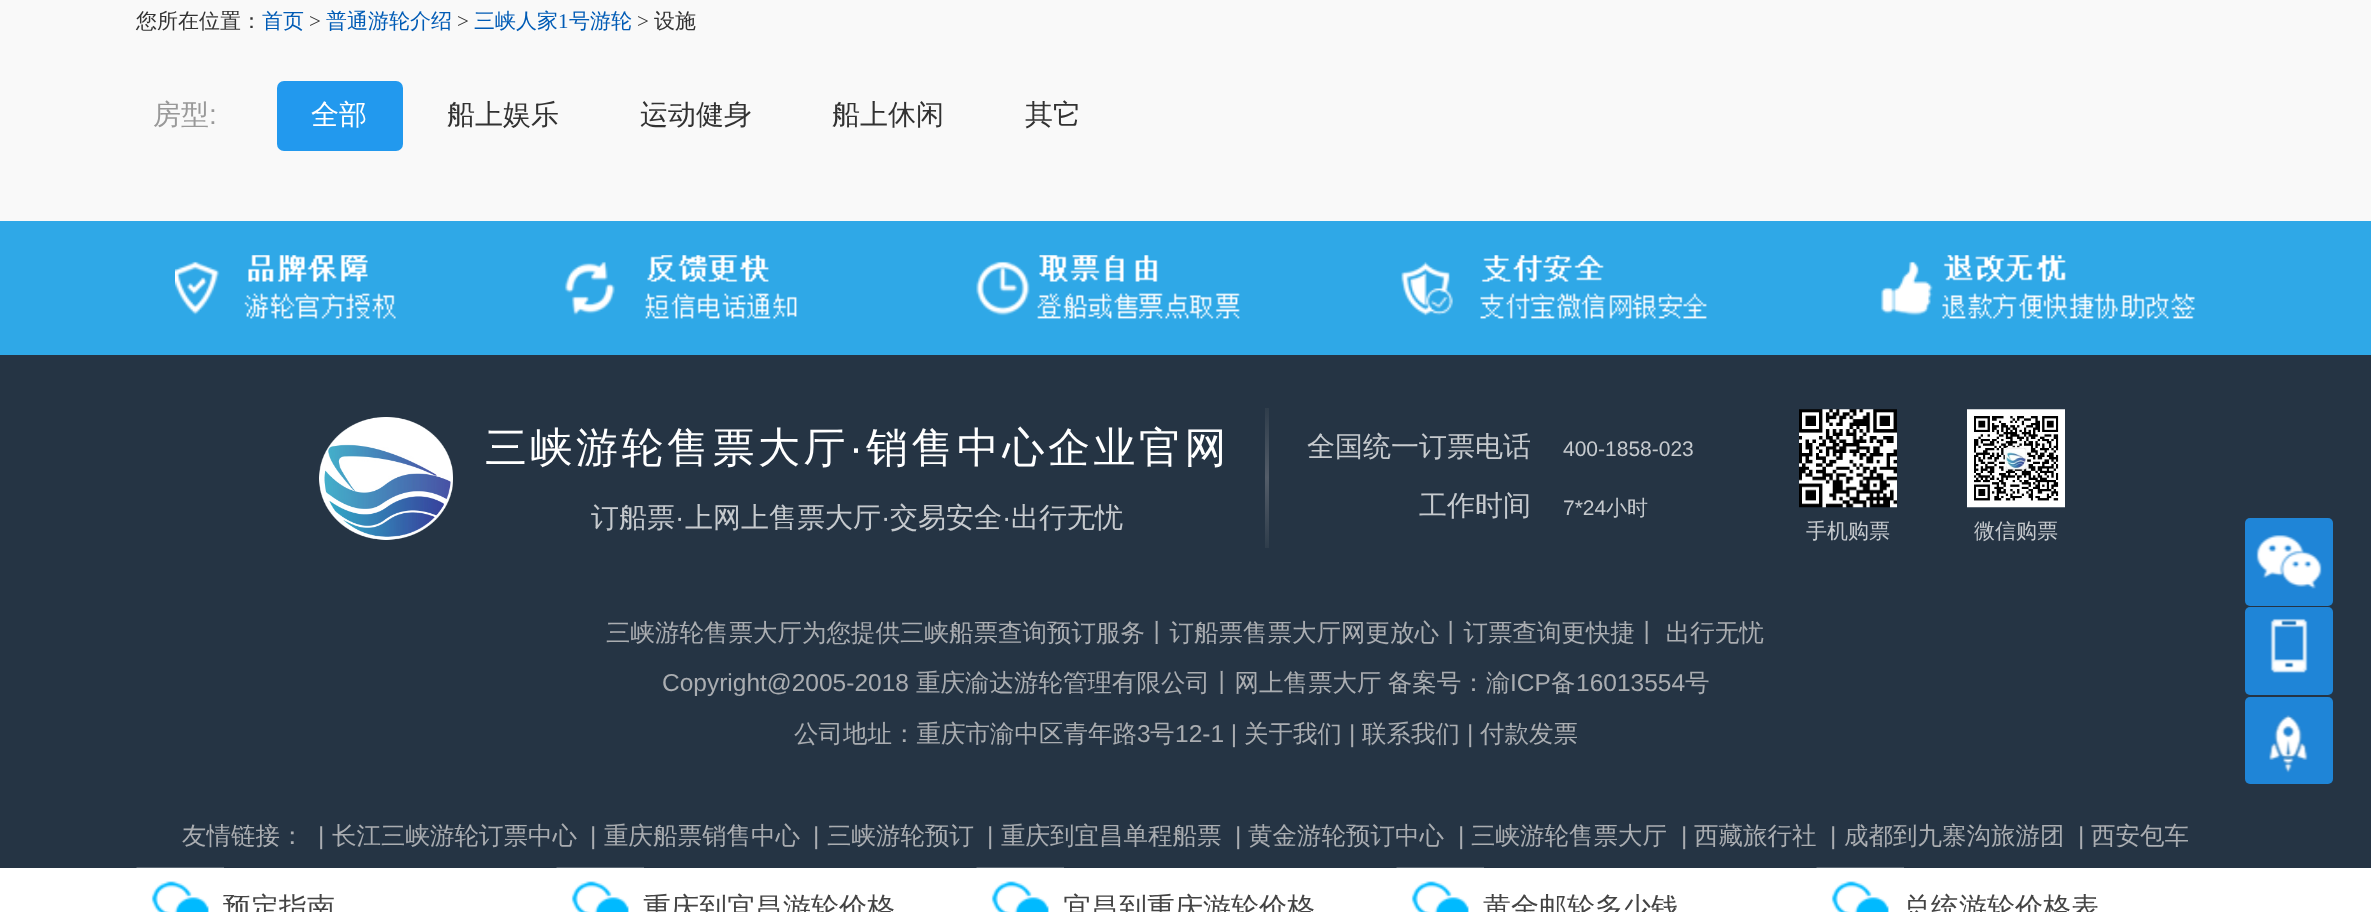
<svg xmlns="http://www.w3.org/2000/svg" width="2371" height="912">
<defs>
<linearGradient id="g1" gradientUnits="userSpaceOnUse" x1="1267" y1="408" x2="1267" y2="548"><stop offset="0" stop-color="#2f3d4b"/><stop offset="0.5" stop-color="#535c68"/><stop offset="1" stop-color="#2f3d4b"/></linearGradient>
</defs>
<rect width="100%" height="100%" fill="#f9f9f9"/>
<text x="136" y="28" style="font-family:WenQuanYi Zen Hei;font-size:21px;font-weight:500;fill:#323232">您所在位置：</text>
<text x="262" y="28" style="font-family:WenQuanYi Zen Hei;font-size:21px;font-weight:500;fill:#005bb5">首页</text>
<text x="309" y="28" style="font-family:Liberation Serif;font-size:21px;fill:#323232">&gt;</text>
<text x="326" y="28" style="font-family:WenQuanYi Zen Hei;font-size:21px;font-weight:500;fill:#005bb5">普通游轮介绍</text>
<text x="457" y="28" style="font-family:Liberation Serif;font-size:21px;fill:#323232">&gt;</text>
<text x="474" y="28" style="font-family:WenQuanYi Zen Hei;font-size:21px;font-weight:500;fill:#005bb5">三峡人家</text>
<text x="558" y="28" style="font-family:Liberation Serif;font-size:21px;fill:#005bb5">1</text>
<text x="569" y="28" style="font-family:WenQuanYi Zen Hei;font-size:21px;font-weight:500;fill:#005bb5">号游轮</text>
<text x="637" y="28" style="font-family:Liberation Serif;font-size:21px;fill:#323232">&gt;</text>
<text x="654" y="28" style="font-family:WenQuanYi Zen Hei;font-size:21px;font-weight:500;fill:#323232">设施</text>
<text x="153" y="124" style="font-family:WenQuanYi Zen Hei;font-size:28px;font-weight:500;fill:#999">房型</text>
<text x="209" y="124" style="font-family:Liberation Sans;font-size:28px;fill:#999">:</text>
<rect x="277" y="81" width="126" height="70" rx="7" fill="#29e"/>
<text x="311" y="124" style="font-family:WenQuanYi Zen Hei;font-size:28px;font-weight:500;fill:#fff">全部</text>
<text x="447" y="124" style="font-family:WenQuanYi Zen Hei;font-size:28px;font-weight:500;fill:#323232">船上娱乐</text>
<text x="640" y="124" style="font-family:WenQuanYi Zen Hei;font-size:28px;font-weight:500;fill:#323232">运动健身</text>
<text x="832" y="124" style="font-family:WenQuanYi Zen Hei;font-size:28px;font-weight:500;fill:#323232">船上休闲</text>
<text x="1025" y="124" style="font-family:WenQuanYi Zen Hei;font-size:28px;font-weight:500;fill:#323232">其它</text>
<rect y="355" width="2371" height="513" fill="#253444"/>
<rect y="221" width="2371" height="134" fill="#2fa8e7"/>
<image x="175" y="255" width="2020" height="64" href="media/1.png"/>
<image x="319" y="417" width="134" height="123" href="media/2.png"/>
<text x="485" y="462" style="font-family:WenQuanYi Zen Hei;font-size:42px;font-weight:500;letter-spacing:3.5px;fill:#fff">三峡游轮售票大厅</text>
<text x="849" y="462" style="font-family:Liberation Sans;font-size:42px;letter-spacing:3.5px;fill:#fff">·</text>
<text x="866" y="462" style="font-family:WenQuanYi Zen Hei;font-size:42px;font-weight:500;letter-spacing:3.5px;fill:#fff">销售中心企业官网</text>
<text x="591" y="527" style="font-family:WenQuanYi Zen Hei;font-size:28px;font-weight:500;fill:#c6cace">订船票</text>
<text x="675" y="527" style="font-family:Liberation Sans;font-size:28px;fill:#c6cace">·</text>
<text x="685" y="527" style="font-family:WenQuanYi Zen Hei;font-size:28px;font-weight:500;fill:#c6cace">上网上售票大厅</text>
<text x="881" y="527" style="font-family:Liberation Sans;font-size:28px;fill:#c6cace">·</text>
<text x="890" y="527" style="font-family:WenQuanYi Zen Hei;font-size:28px;font-weight:500;fill:#c6cace">交易安全</text>
<text x="1002" y="527" style="font-family:Liberation Sans;font-size:28px;fill:#c6cace">·</text>
<text x="1011" y="527" style="font-family:WenQuanYi Zen Hei;font-size:28px;font-weight:500;fill:#c6cace">出行无忧</text>
<rect x="1265" y="408" width="4" height="140" fill="url(#g1)"/>
<text x="1307" y="456" style="font-family:WenQuanYi Zen Hei;font-size:28px;font-weight:500;fill:#c6cace">全国统一订票电话</text>
<text x="1563" y="456" style="font-family:Liberation Sans;font-size:21px;fill:#c6cace">400-1858-023</text>
<text x="1419" y="515" style="font-family:WenQuanYi Zen Hei;font-size:28px;font-weight:500;fill:#c6cace">工作时间</text>
<text x="1563" y="515" style="font-family:Liberation Sans;font-size:21px;fill:#c6cace">7*24</text>
<text x="1606" y="515" style="font-family:WenQuanYi Zen Hei;font-size:21px;font-weight:500;fill:#c6cace">小时</text>
<image x="1799" y="409" width="98" height="99" href="media/3.png"/>
<text x="1806" y="538" style="font-family:WenQuanYi Zen Hei;font-size:21px;font-weight:500;fill:#c6cace">手机购票</text>
<image x="1967" y="409" width="98" height="99" href="media/4.png"/>
<text x="1974" y="538" style="font-family:WenQuanYi Zen Hei;font-size:21px;font-weight:500;fill:#c6cace">微信购票</text>
<text x="606" y="641" word-spacing="-1" style="font-family:WenQuanYi Zen Hei;font-size:24.5px;font-weight:500;fill:#aaadb1">三峡游轮售票大厅为您提供三峡船票查询预订服务丨订船票售票大厅网更放心丨订票查询更快捷丨 出行无忧</text>
<text x="662" y="691" style="font-family:Liberation Sans;font-size:24.5px;fill:#aaadb1">Copyright@2005-2018</text>
<text x="916" y="691" word-spacing="-1" style="font-family:WenQuanYi Zen Hei;font-size:24.5px;font-weight:500;fill:#aaadb1">重庆渝达游轮管理有限公司丨网上售票大厅 备案号：</text>
<text x="1486" y="691" style="font-family:WenQuanYi Zen Hei;font-size:24.5px;font-weight:500;fill:#aaadb1">渝</text>
<text x="1510" y="691" style="font-family:Liberation Sans;font-size:24.5px;fill:#aaadb1">ICP</text>
<text x="1551" y="691" style="font-family:WenQuanYi Zen Hei;font-size:24.5px;font-weight:500;fill:#aaadb1">备</text>
<text x="1576" y="691" style="font-family:Liberation Sans;font-size:24.5px;fill:#aaadb1">16013554</text>
<text x="1685" y="691" style="font-family:WenQuanYi Zen Hei;font-size:24.5px;font-weight:500;fill:#aaadb1">号</text>
<text x="794" y="742" style="font-family:WenQuanYi Zen Hei;font-size:24.5px;font-weight:500;fill:#aaadb1">公司地址：重庆市渝中区青年路</text>
<text x="1137" y="742" style="font-family:Liberation Sans;font-size:24.5px;fill:#aaadb1">3</text>
<text x="1150" y="742" style="font-family:WenQuanYi Zen Hei;font-size:24.5px;font-weight:500;fill:#aaadb1">号</text>
<text x="1175" y="742" style="font-family:Liberation Sans;font-size:24.5px;fill:#aaadb1">12-1 |</text>
<text x="1244" y="742" style="font-family:WenQuanYi Zen Hei;font-size:24.5px;font-weight:500;fill:#aaadb1">关于我们</text>
<text x="1349" y="742" style="font-family:Liberation Sans;font-size:24.5px;fill:#aaadb1">|</text>
<text x="1362" y="742" style="font-family:WenQuanYi Zen Hei;font-size:24.5px;font-weight:500;fill:#aaadb1">联系我们</text>
<text x="1467" y="742" style="font-family:Liberation Sans;font-size:24.5px;fill:#aaadb1">|</text>
<text x="1480" y="742" style="font-family:WenQuanYi Zen Hei;font-size:24.5px;font-weight:500;fill:#aaadb1">付款发票</text>
<text x="182" y="844" style="font-family:WenQuanYi Zen Hei;font-size:24.5px;font-weight:500;fill:#aaadb1">友情链接：</text>
<text x="318" y="844" style="font-family:Liberation Sans;font-size:24.5px;fill:#aaadb1">|</text>
<text x="332" y="844" style="font-family:WenQuanYi Zen Hei;font-size:24.5px;font-weight:500;fill:#aaadb1">长江三峡游轮订票中心</text>
<text x="590" y="844" style="font-family:Liberation Sans;font-size:24.5px;fill:#aaadb1">|</text>
<text x="604" y="844" style="font-family:WenQuanYi Zen Hei;font-size:24.5px;font-weight:500;fill:#aaadb1">重庆船票销售中心</text>
<text x="813" y="844" style="font-family:Liberation Sans;font-size:24.5px;fill:#aaadb1">|</text>
<text x="827" y="844" style="font-family:WenQuanYi Zen Hei;font-size:24.5px;font-weight:500;fill:#aaadb1">三峡游轮预订</text>
<text x="987" y="844" style="font-family:Liberation Sans;font-size:24.5px;fill:#aaadb1">|</text>
<text x="1001" y="844" style="font-family:WenQuanYi Zen Hei;font-size:24.5px;font-weight:500;fill:#aaadb1">重庆到宜昌单程船票</text>
<text x="1235" y="844" style="font-family:Liberation Sans;font-size:24.5px;fill:#aaadb1">|</text>
<text x="1248" y="844" style="font-family:WenQuanYi Zen Hei;font-size:24.5px;font-weight:500;fill:#aaadb1">黄金游轮预订中心</text>
<text x="1458" y="844" style="font-family:Liberation Sans;font-size:24.5px;fill:#aaadb1">|</text>
<text x="1471" y="844" style="font-family:WenQuanYi Zen Hei;font-size:24.5px;font-weight:500;fill:#aaadb1">三峡游轮售票大厅</text>
<text x="1681" y="844" style="font-family:Liberation Sans;font-size:24.5px;fill:#aaadb1">|</text>
<text x="1694" y="844" style="font-family:WenQuanYi Zen Hei;font-size:24.5px;font-weight:500;fill:#aaadb1">西藏旅行社</text>
<text x="1830" y="844" style="font-family:Liberation Sans;font-size:24.5px;fill:#aaadb1">|</text>
<text x="1844" y="844" style="font-family:WenQuanYi Zen Hei;font-size:24.5px;font-weight:500;fill:#aaadb1">成都到九寨沟旅游团</text>
<text x="2078" y="844" style="font-family:Liberation Sans;font-size:24.5px;fill:#aaadb1">|</text>
<text x="2091" y="844" style="font-family:WenQuanYi Zen Hei;font-size:24.5px;font-weight:500;fill:#aaadb1">西安包车</text>
<rect y="868" width="2371" height="44" fill="#fff"/>
<image x="136" y="867" width="88" height="45" href="media/5.png"/>
<text x="223" y="917" style="font-family:WenQuanYi Zen Hei;font-size:28px;font-weight:500;fill:#444">预定指南</text>
<image x="556" y="867" width="88" height="45" href="media/5.png"/>
<text x="643" y="917" style="font-family:WenQuanYi Zen Hei;font-size:28px;font-weight:500;fill:#444">重庆到宜昌游轮价格</text>
<image x="976" y="867" width="88" height="45" href="media/6.png"/>
<text x="1063" y="917" style="font-family:WenQuanYi Zen Hei;font-size:28px;font-weight:500;fill:#444">宜昌到重庆游轮价格</text>
<image x="1396" y="867" width="88" height="45" href="media/7.png"/>
<text x="1483" y="917" style="font-family:WenQuanYi Zen Hei;font-size:28px;font-weight:500;fill:#444">黄金邮轮多少钱</text>
<image x="1816" y="867" width="88" height="45" href="media/5.png"/>
<text x="1903" y="917" style="font-family:WenQuanYi Zen Hei;font-size:28px;font-weight:500;fill:#444">总统游轮价格表</text>
<rect x="2245" y="518" width="88" height="88" rx="5" fill="#1f85d7"/>
<image x="2256" y="535" width="66" height="54" href="media/8.png"/>
<rect x="2245" y="607" width="88" height="88" rx="5" fill="#1f85d7"/>
<image x="2270" y="618" width="38" height="56" href="media/9.png"/>
<rect x="2245" y="697" width="88" height="87" rx="5" fill="#1f85d7"/>
<image x="2269" y="715" width="39" height="58" href="media/10.png"/>
</svg>
